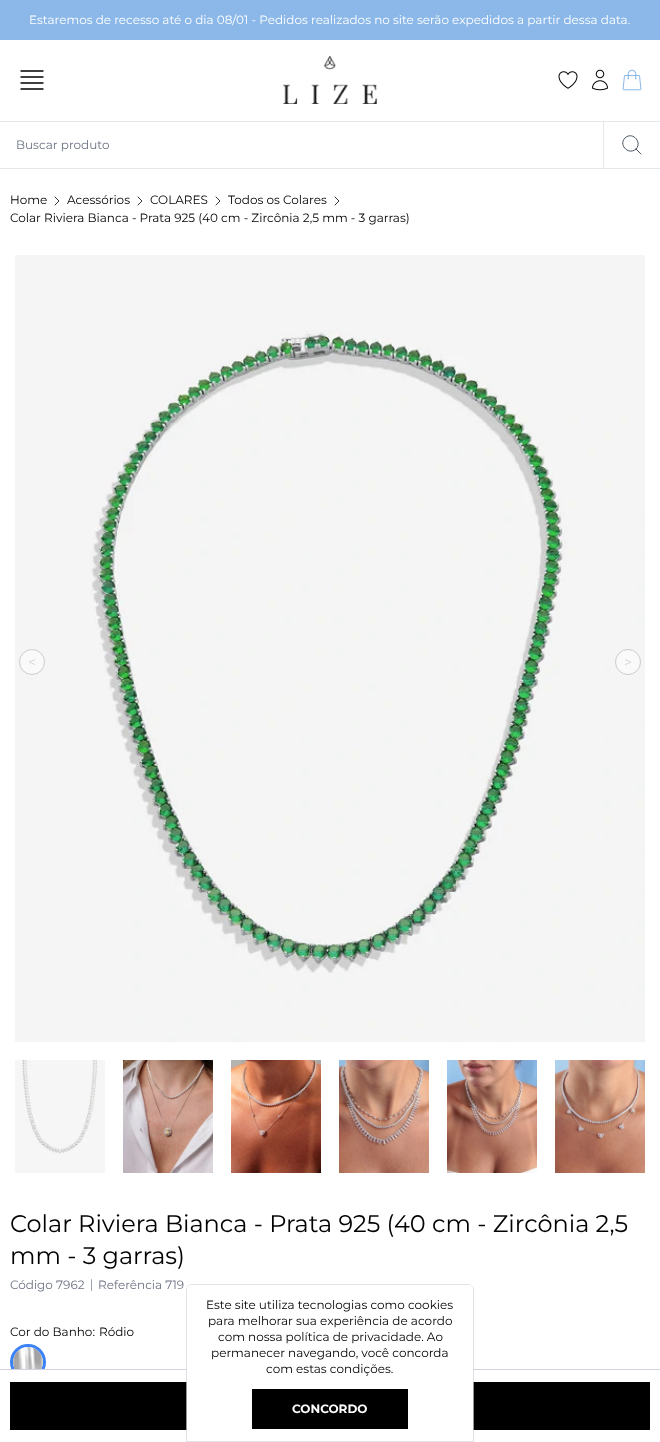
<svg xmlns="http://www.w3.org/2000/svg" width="660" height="1442">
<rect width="100%" height="100%" fill="#fff"/>
<rect width="660" height="40" fill="#8bb8e8"/>
<text x="29" y="24" style="font-family:Montserrat;font-size:12px;fill:#fff">Estaremos de recesso até o dia 08/01 - Pedidos realizados no site serão expedidos a partir dessa data.</text>
<path d="M21 71h22m-22 6h22m-22 6h22m-22 6h22" fill="none" stroke="#000" stroke-width="1.3" stroke-linecap="round" stroke-linejoin="round"/>
<image x="283" y="56" width="95" height="48" href="media/1.png"/>
<image x="558" y="71" width="20" height="18" href="media/2.png"/>
<image x="592" y="69" width="16" height="22" href="media/3.png"/>
<image x="622" y="69" width="20" height="22" href="media/4.png"/>
<rect y="121" width="660" height="1" fill="#e5e7eb"/>
<rect y="168" width="660" height="1" fill="#e5e7eb"/>
<text x="16" y="149" style="font-family:Montserrat;font-size:12px;fill:#6b7280">Buscar produto</text>
<rect x="603" y="122" width="1" height="46" fill="#e5e7eb"/>
<path d="M641 154l-5-5m0 0c7-7-4-18-11-11c-7 7 4 18 11 11z" fill="none" stroke="#4b5563" stroke-linecap="round" stroke-linejoin="round"/>
<text x="10" y="204" style="font-family:Montserrat;font-size:12px;fill:#000">Home</text>
<path d="M55 197l4 4l-4 4" fill="none" stroke="#000" stroke-width="0.8" stroke-linecap="round" stroke-linejoin="round"/>
<text x="67" y="204" style="font-family:Montserrat;font-size:12px;fill:#000">Acessórios</text>
<path d="M138 197l4 4l-4 4" fill="none" stroke="#000" stroke-width="0.8" stroke-linecap="round" stroke-linejoin="round"/>
<text x="150" y="204" style="font-family:Montserrat;font-size:12px;fill:#000">COLARES</text>
<path d="M216 197l4 4l-4 4" fill="none" stroke="#000" stroke-width="0.8" stroke-linecap="round" stroke-linejoin="round"/>
<text x="228" y="204" style="font-family:Montserrat;font-size:12px;fill:#000">Todos os Colares</text>
<path d="M335 197l4 4l-4 4" fill="none" stroke="#000" stroke-width="0.8" stroke-linecap="round" stroke-linejoin="round"/>
<text x="10" y="222" style="font-family:Montserrat;font-size:12px;fill:#000">Colar Riviera Bianca - Prata 925 (40 cm - Zircônia 2,5 mm - 3 garras)</text>
<image x="15" y="255" width="630" height="787" href="media/5.png"/>
<circle cx="32" cy="662" r="12.5" fill="#fafafa" stroke="#c9ccd2"/>
<text x="28" y="667" style="font-family:Montserrat;font-size:14px;fill:#c9ccd2">&lt;</text>
<circle cx="628" cy="662" r="12.5" fill="#fafafa" stroke="#c8ccd2"/>
<text x="624" y="667" style="font-family:Montserrat;font-size:14px;fill:#c9ccd2">&gt;</text>
<image x="15" y="1060" width="90" height="113" href="media/6.png"/>
<image x="123" y="1060" width="90" height="113" href="media/7.png"/>
<image x="231" y="1060" width="90" height="113" href="media/8.png"/>
<image x="339" y="1060" width="90" height="113" href="media/9.png"/>
<image x="447" y="1060" width="90" height="113" href="media/10.png"/>
<image x="555" y="1060" width="90" height="113" href="media/11.png"/>
<text x="10" y="1232" style="font-family:Montserrat;font-size:24px;fill:#000">Colar Riviera Bianca - Prata 925 (40 cm - Zircônia 2,5</text>
<text x="10" y="1264" style="font-family:Montserrat;font-size:24px;fill:#000">mm - 3 garras)</text>
<text x="10" y="1289" style="font-family:Montserrat;font-size:12px;fill:#6b7280">Código 7962</text>
<rect x="91" y="1279" width="1" height="12" rx="0.5" fill="#9ca3af"/>
<text x="98" y="1289" style="font-family:Montserrat;font-size:12px;fill:#6b7280">Referência 719</text>
<text x="10" y="1336" style="font-family:Montserrat;font-size:12px;fill:#000">Cor do Banho:</text>
<text x="99" y="1336" style="font-family:Montserrat;font-size:12px;fill:#000">Ródio</text>
<circle cx="28" cy="1362" r="16.5" fill="none" stroke="#3b82f6" stroke-width="3"/>
<image x="13" y="1347" width="30" height="22" href="media/12.png"/>
<rect x="12" y="1370" width="32" height="10" fill="#fff"/>
<rect y="1369" width="660" height="1" fill="#d1d5db"/>
<rect x="10" y="1382" width="640" height="48" fill="#000"/>
<path d="M192 1284.5h276c3 0 5.5 2.5 5.5 5.5v151.5h-287v-151.5c0-3 2.5-5.5 5.5-5.5z" fill="none" stroke="#d1d5dbb3"/>
<path d="M192 1285h276c3 0 5 2 5 5v151h-286v-151c0-3 2-5 5-5z" fill="#fff"/>
<text x="206" y="1309" style="font-family:Montserrat;font-size:12px;fill:#000">Este site utiliza tecnologias como cookies</text>
<text x="208" y="1325" style="font-family:Montserrat;font-size:12px;fill:#000">para melhorar sua experiência de acordo</text>
<text x="218" y="1341" style="font-family:Montserrat;font-size:12px;fill:#000">com nossa política de privacidade. Ao</text>
<text x="211" y="1357" style="font-family:Montserrat;font-size:12px;fill:#000">permanecer navegando, você concorda</text>
<text x="266" y="1373" style="font-family:Montserrat;font-size:12px;fill:#000">com estas condições.</text>
<rect x="252" y="1389" width="156" height="40" fill="#000"/>
<text x="292" y="1413" style="font-family:Montserrat;font-size:12px;font-weight:bold;fill:#fff">CONCORDO</text>
</svg>
